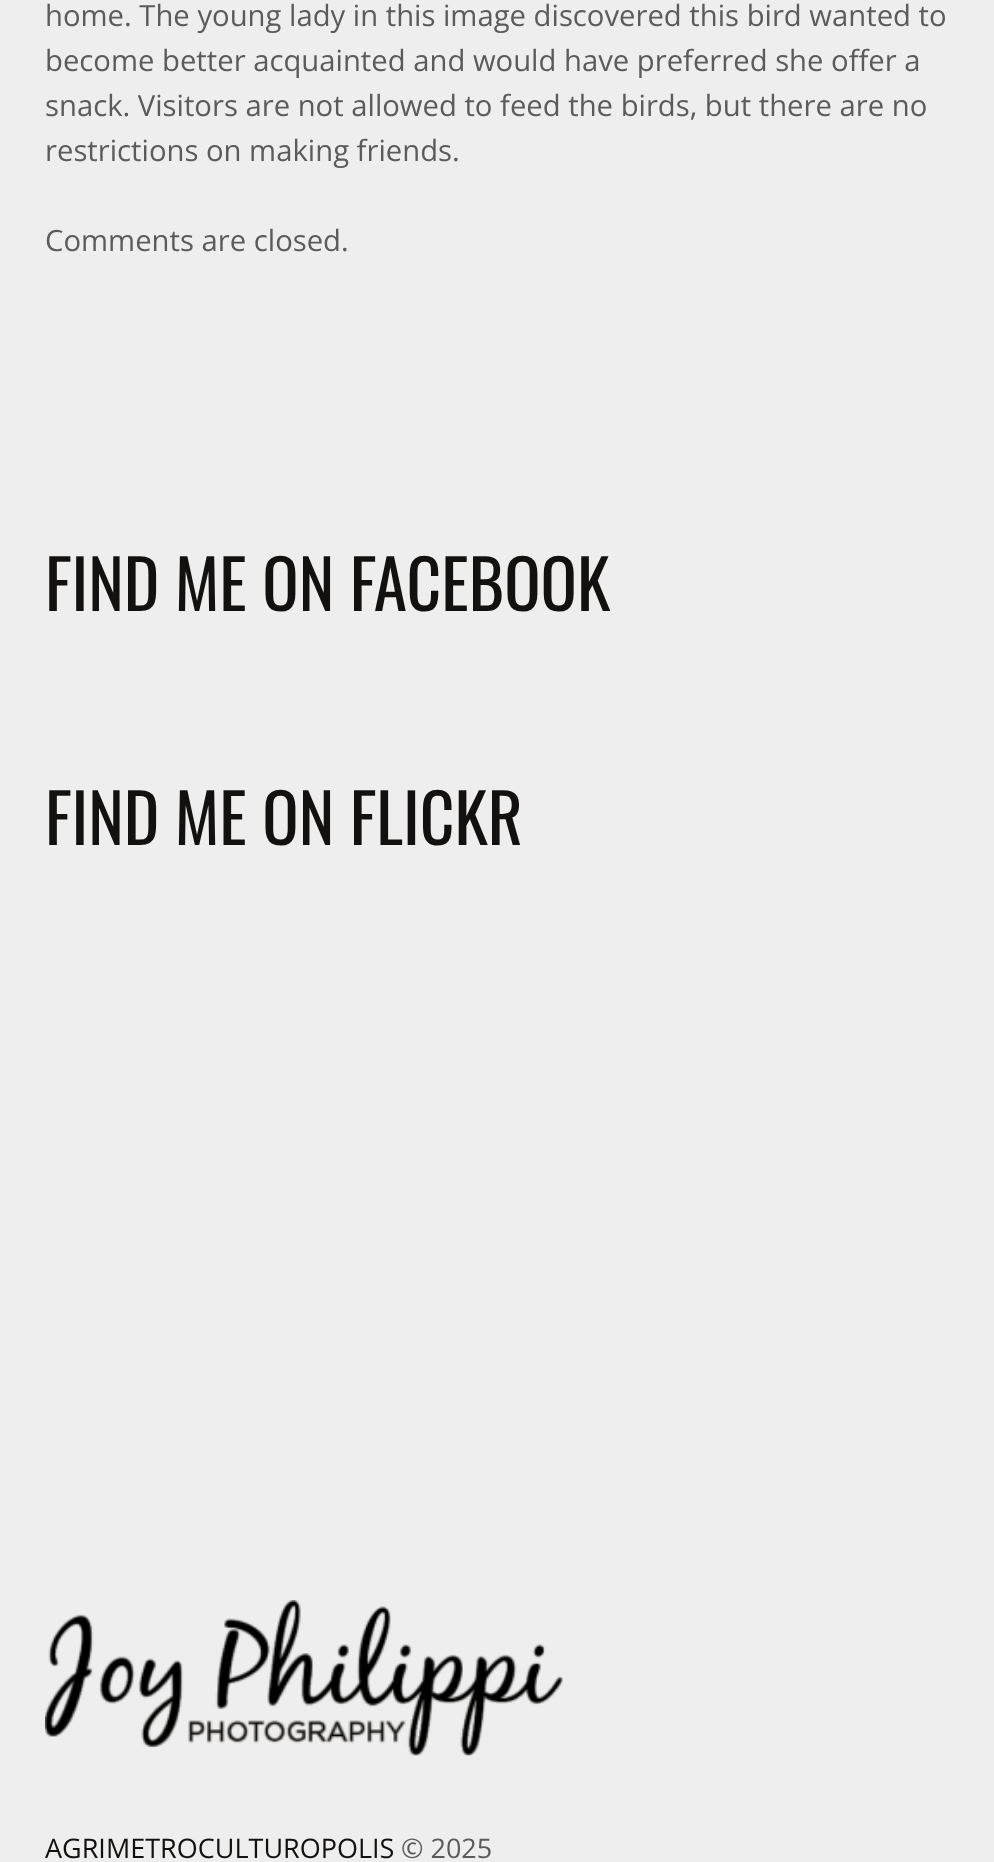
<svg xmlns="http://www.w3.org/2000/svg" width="994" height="1862">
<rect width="100%" height="100%" fill="#eee"/>
<text x="45" y="26" style="font-family:Open Sans;font-size:29.25px;fill:#5b5b5b">home. The young lady in this image discovered this bird wanted to</text>
<text x="45" y="71" style="font-family:Open Sans;font-size:29.25px;fill:#5b5b5b">become better acquainted and would have preferred she offer a</text>
<text x="45" y="116" style="font-family:Open Sans;font-size:29.25px;fill:#5b5b5b">snack. Visitors are not allowed to feed the birds, but there are no</text>
<text x="45" y="161" style="font-family:Open Sans;font-size:29.25px;fill:#5b5b5b">restrictions on making friends.</text>
<text x="45" y="251" style="font-family:Open Sans;font-size:29.25px;fill:#5b5b5b">Comments are closed.</text>
<text x="45" y="611" style="font-family:Oswald;font-size:67.5px;fill:#13110f">FIND ME ON FACEBOOK</text>
<text x="45" y="845" style="font-family:Oswald;font-size:67.5px;fill:#13110f">FIND ME ON FLICKR</text>
<image x="45" y="1600" width="518" height="156" href="media/1.png"/>
<text x="45" y="1858" style="font-family:Open Sans;font-size:27px;fill:#13110f">AGRIMETROCULTUROPOLIS</text>
<text x="401" y="1858" style="font-family:Open Sans;font-size:27px;fill:#5b5b5b">© 2025</text>
</svg>
